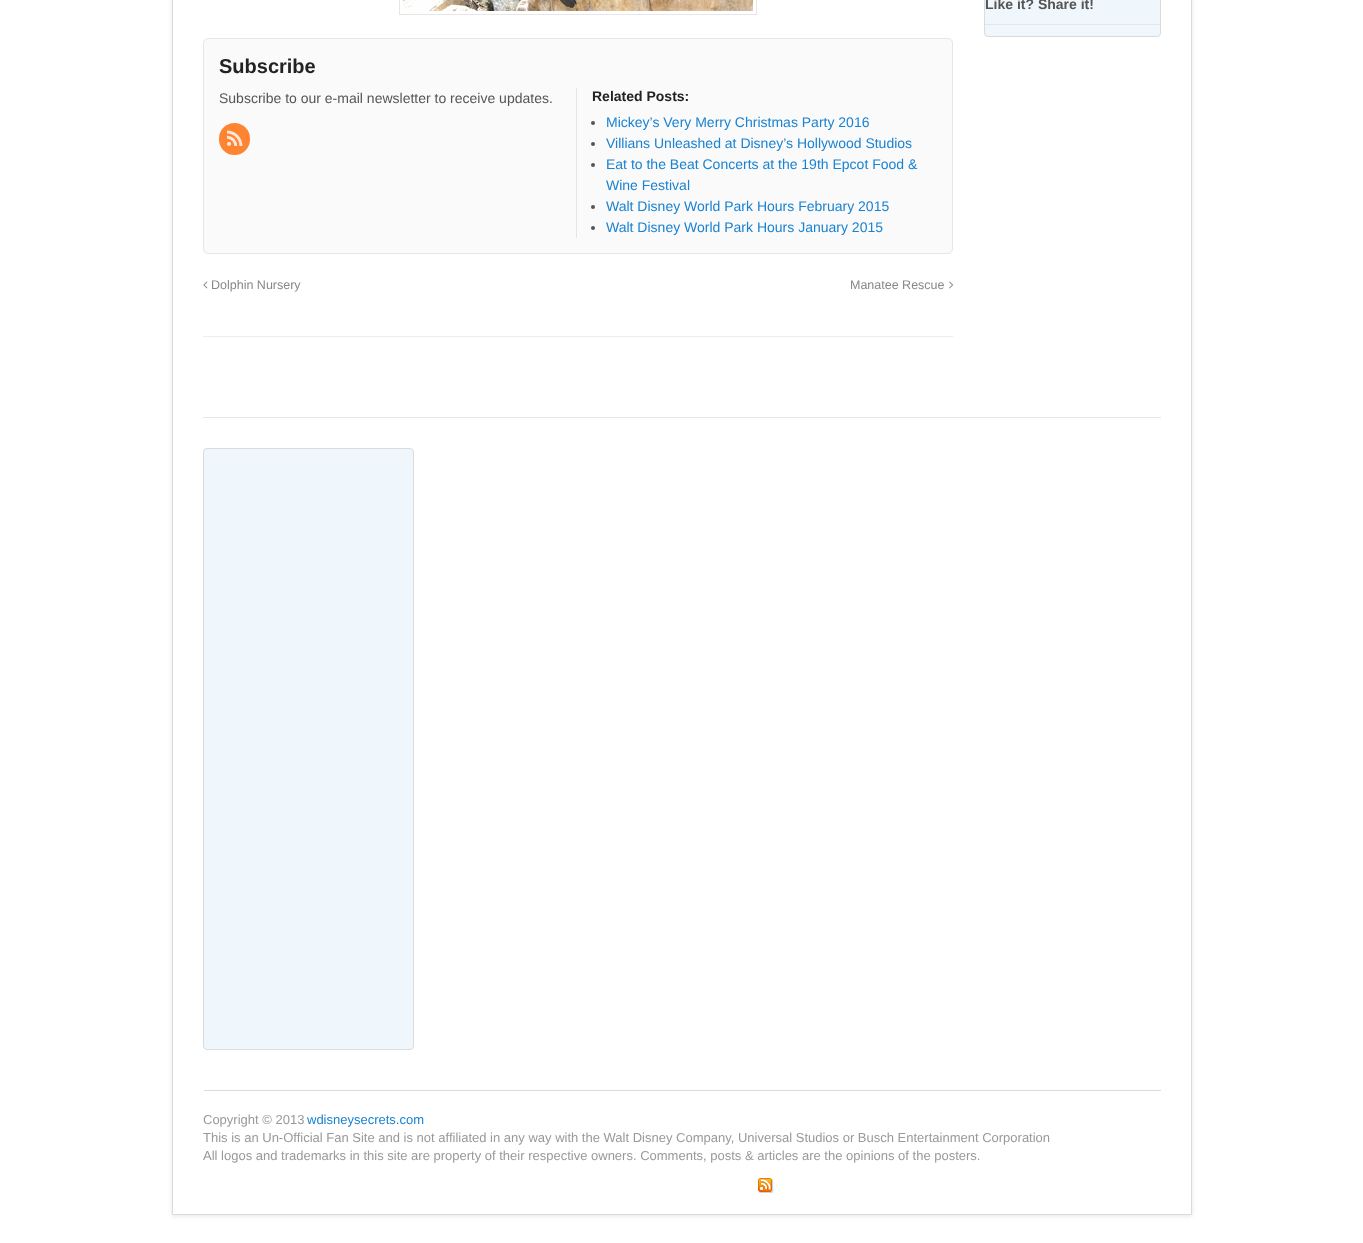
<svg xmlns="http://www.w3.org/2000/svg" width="1363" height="1243">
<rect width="100%" height="100%" fill="#fff"/>
<rect x="172" y="-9" width="1020" height="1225" rx="1" fill="#0000001a" filter="blur(2.5px)"/>
<rect x="172.5" y="-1.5" width="1019" height="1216" rx="0.5" fill="#fff" stroke="#dbdbdb"/>
<rect x="984.5" y="-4.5" width="176" height="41" rx="3.5" fill="#f0f7fc" stroke="#dbdbdb"/>
<rect x="985" y="24" width="175" height="1" fill="#e6e6e6"/>
<text x="985" y="9" style="font-family:Liberation Sans;font-size:14px;font-weight:bold;fill:#555">Like it? Share it!</text>
<rect x="399.5" y="-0.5" width="357" height="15" fill="none" stroke="#e6e6e6"/>
<image x="403" y="0" width="350" height="11" href="media/1.png"/>
<rect x="203.5" y="38.5" width="749" height="215" rx="4.5" fill="#fafafa" stroke="#e6e6e6"/>
<text x="219" y="73" style="font-family:Liberation Sans;font-size:20px;font-weight:bold;fill:#222">Subscribe</text>
<text x="219" y="103" style="font-family:Liberation Sans;font-size:14px;fill:#555">Subscribe to our e-mail newsletter to receive updates.</text>
<rect x="219" y="123" width="31" height="32" rx="15.5" fill="#fe8432"/>
<image x="227" y="130" width="16" height="16" href="media/2.png"/>
<rect x="576" y="88" width="1" height="150" fill="#e6e6e6"/>
<text x="592" y="101" style="font-family:Liberation Sans;font-size:14px;font-weight:bold;fill:#222">Related Posts:</text>
<circle cx="593" cy="123" r="2" fill="#555"/>
<text x="606" y="127" style="font-family:Liberation Sans;font-size:14px;fill:#1982d1">Mickey’s Very Merry Christmas Party 2016</text>
<circle cx="593" cy="144" r="2" fill="#555"/>
<text x="606" y="148" style="font-family:Liberation Sans;font-size:14px;fill:#1982d1">Villians Unleashed at Disney’s Hollywood Studios</text>
<circle cx="593" cy="165" r="2" fill="#555"/>
<text x="606" y="169" style="font-family:Liberation Sans;font-size:14px;fill:#1982d1">Eat to the Beat Concerts at the 19th Epcot Food &amp;</text>
<text x="606" y="190" style="font-family:Liberation Sans;font-size:14px;fill:#1982d1">Wine Festival</text>
<circle cx="593" cy="207" r="2" fill="#555"/>
<text x="606" y="211" style="font-family:Liberation Sans;font-size:14px;fill:#1982d1">Walt Disney World Park Hours February 2015</text>
<circle cx="593" cy="228" r="2" fill="#555"/>
<text x="606" y="232" style="font-family:Liberation Sans;font-size:14px;fill:#1982d1">Walt Disney World Park Hours January 2015</text>
<image x="203" y="281" width="5" height="8" href="media/3.png"/>
<text x="211" y="289" style="font-family:Liberation Sans;font-size:12.5px;fill:#888">Dolphin Nursery</text>
<text x="850" y="289" style="font-family:Liberation Sans;font-size:12.5px;fill:#888">Manatee Rescue</text>
<image x="949" y="281" width="5" height="8" href="media/4.png"/>
<rect x="203" y="336" width="750" height="1" fill="#ededed"/>
<rect x="203" y="417" width="958" height="1" fill="#e6e6e6"/>
<rect x="203.5" y="448.5" width="210" height="601" rx="3.5" fill="#f0f7fc" stroke="#dbdbdb"/>
<rect x="204" y="1090" width="957" height="1" fill="#dbdbdb"/>
<text x="203" y="1124" style="font-family:Liberation Sans;font-size:13px;fill:#999">Copyright © 2013</text>
<text x="307" y="1124" style="font-family:Liberation Sans;font-size:13px;fill:#1982d1">wdisneysecrets.com</text>
<text x="203" y="1142" style="font-family:Liberation Sans;font-size:13px;fill:#999">This is an Un-Official Fan Site and is not affiliated in any way with the Walt Disney Company, Universal Studios or Busch Entertainment Corporation</text>
<text x="203" y="1160" style="font-family:Liberation Sans;font-size:13px;fill:#999">All logos and trademarks in this site are property of their respective owners. Comments, posts &amp; articles are the opinions of the posters.</text>
<image x="758" y="1178" width="16" height="15" href="media/5.png"/>
</svg>
